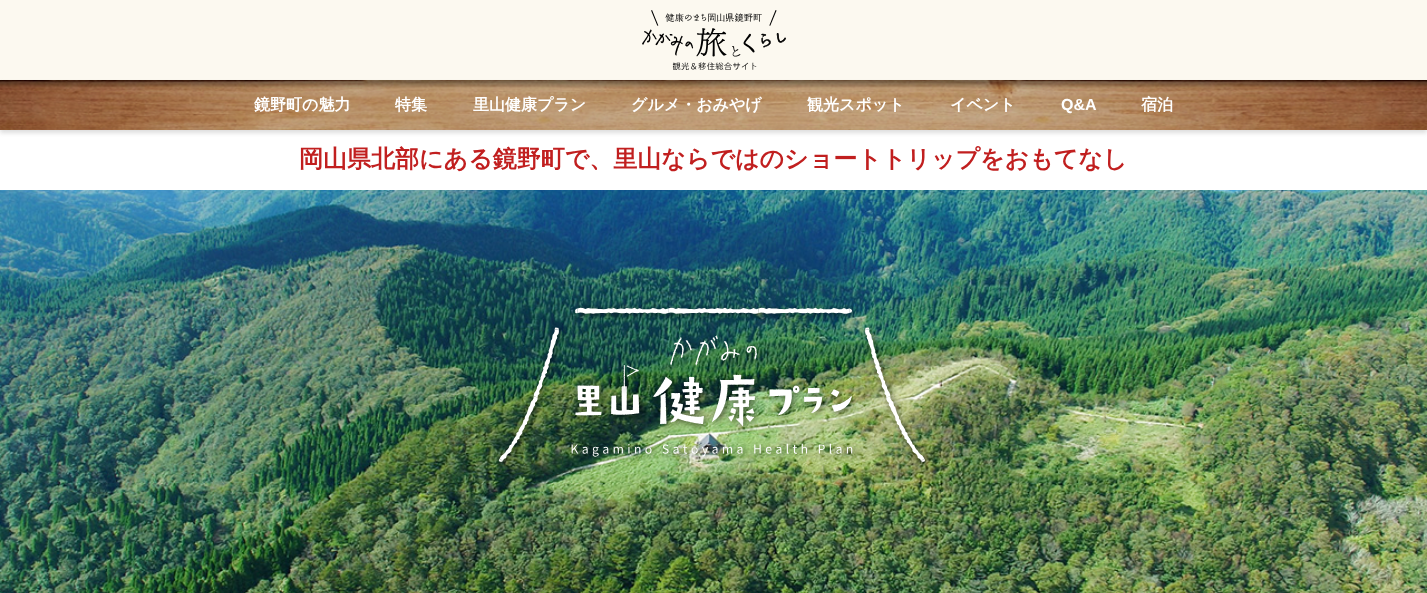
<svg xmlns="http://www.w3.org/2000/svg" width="1427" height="593">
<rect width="100%" height="100%" fill="#fcf9f0"/>
<image x="642" y="10" width="144" height="60" href="media/1.png"/>
<rect y="130" width="1427" height="60" fill="#fff"/>
<rect y="83" width="1427" height="50" fill="#ddd" filter="blur(2px)"/>
<image x="0" y="80" width="1427" height="50" href="media/2.png"/>
<text x="254" y="110" style="font-family:WenQuanYi Zen Hei;font-size:16px;font-weight:bold;fill:#fff">鏡野町の魅力</text>
<text x="395" y="110" style="font-family:WenQuanYi Zen Hei;font-size:16px;font-weight:bold;fill:#fff">特集</text>
<text x="473" y="110" style="font-family:WenQuanYi Zen Hei;font-size:16px;font-weight:bold;fill:#fff">里山健康プラン</text>
<text x="631" y="110" style="font-family:WenQuanYi Zen Hei;font-size:16px;font-weight:bold;fill:#fff">グルメ・おみやげ</text>
<text x="807" y="110" style="font-family:WenQuanYi Zen Hei;font-size:16px;font-weight:bold;fill:#fff">観光スポット</text>
<text x="950" y="110" style="font-family:WenQuanYi Zen Hei;font-size:16px;font-weight:bold;fill:#fff">イベント</text>
<text x="1061" y="110" style="font-family:Liberation Sans;font-size:16px;font-weight:bold;fill:#fff">Q&amp;A</text>
<text x="1141" y="110" style="font-family:WenQuanYi Zen Hei;font-size:16px;font-weight:bold;fill:#fff">宿泊</text>
<text x="299" y="167" style="font-family:WenQuanYi Zen Hei;font-size:24px;font-weight:bold;fill:#c11f1f">岡山県北部にある鏡野町で、里山ならではのショートトリップをおもてなし</text>
<image x="0" y="190" width="1427" height="403" href="media/3.png"/>
<image x="497" y="305" width="434" height="163" href="media/4.png"/>
</svg>
